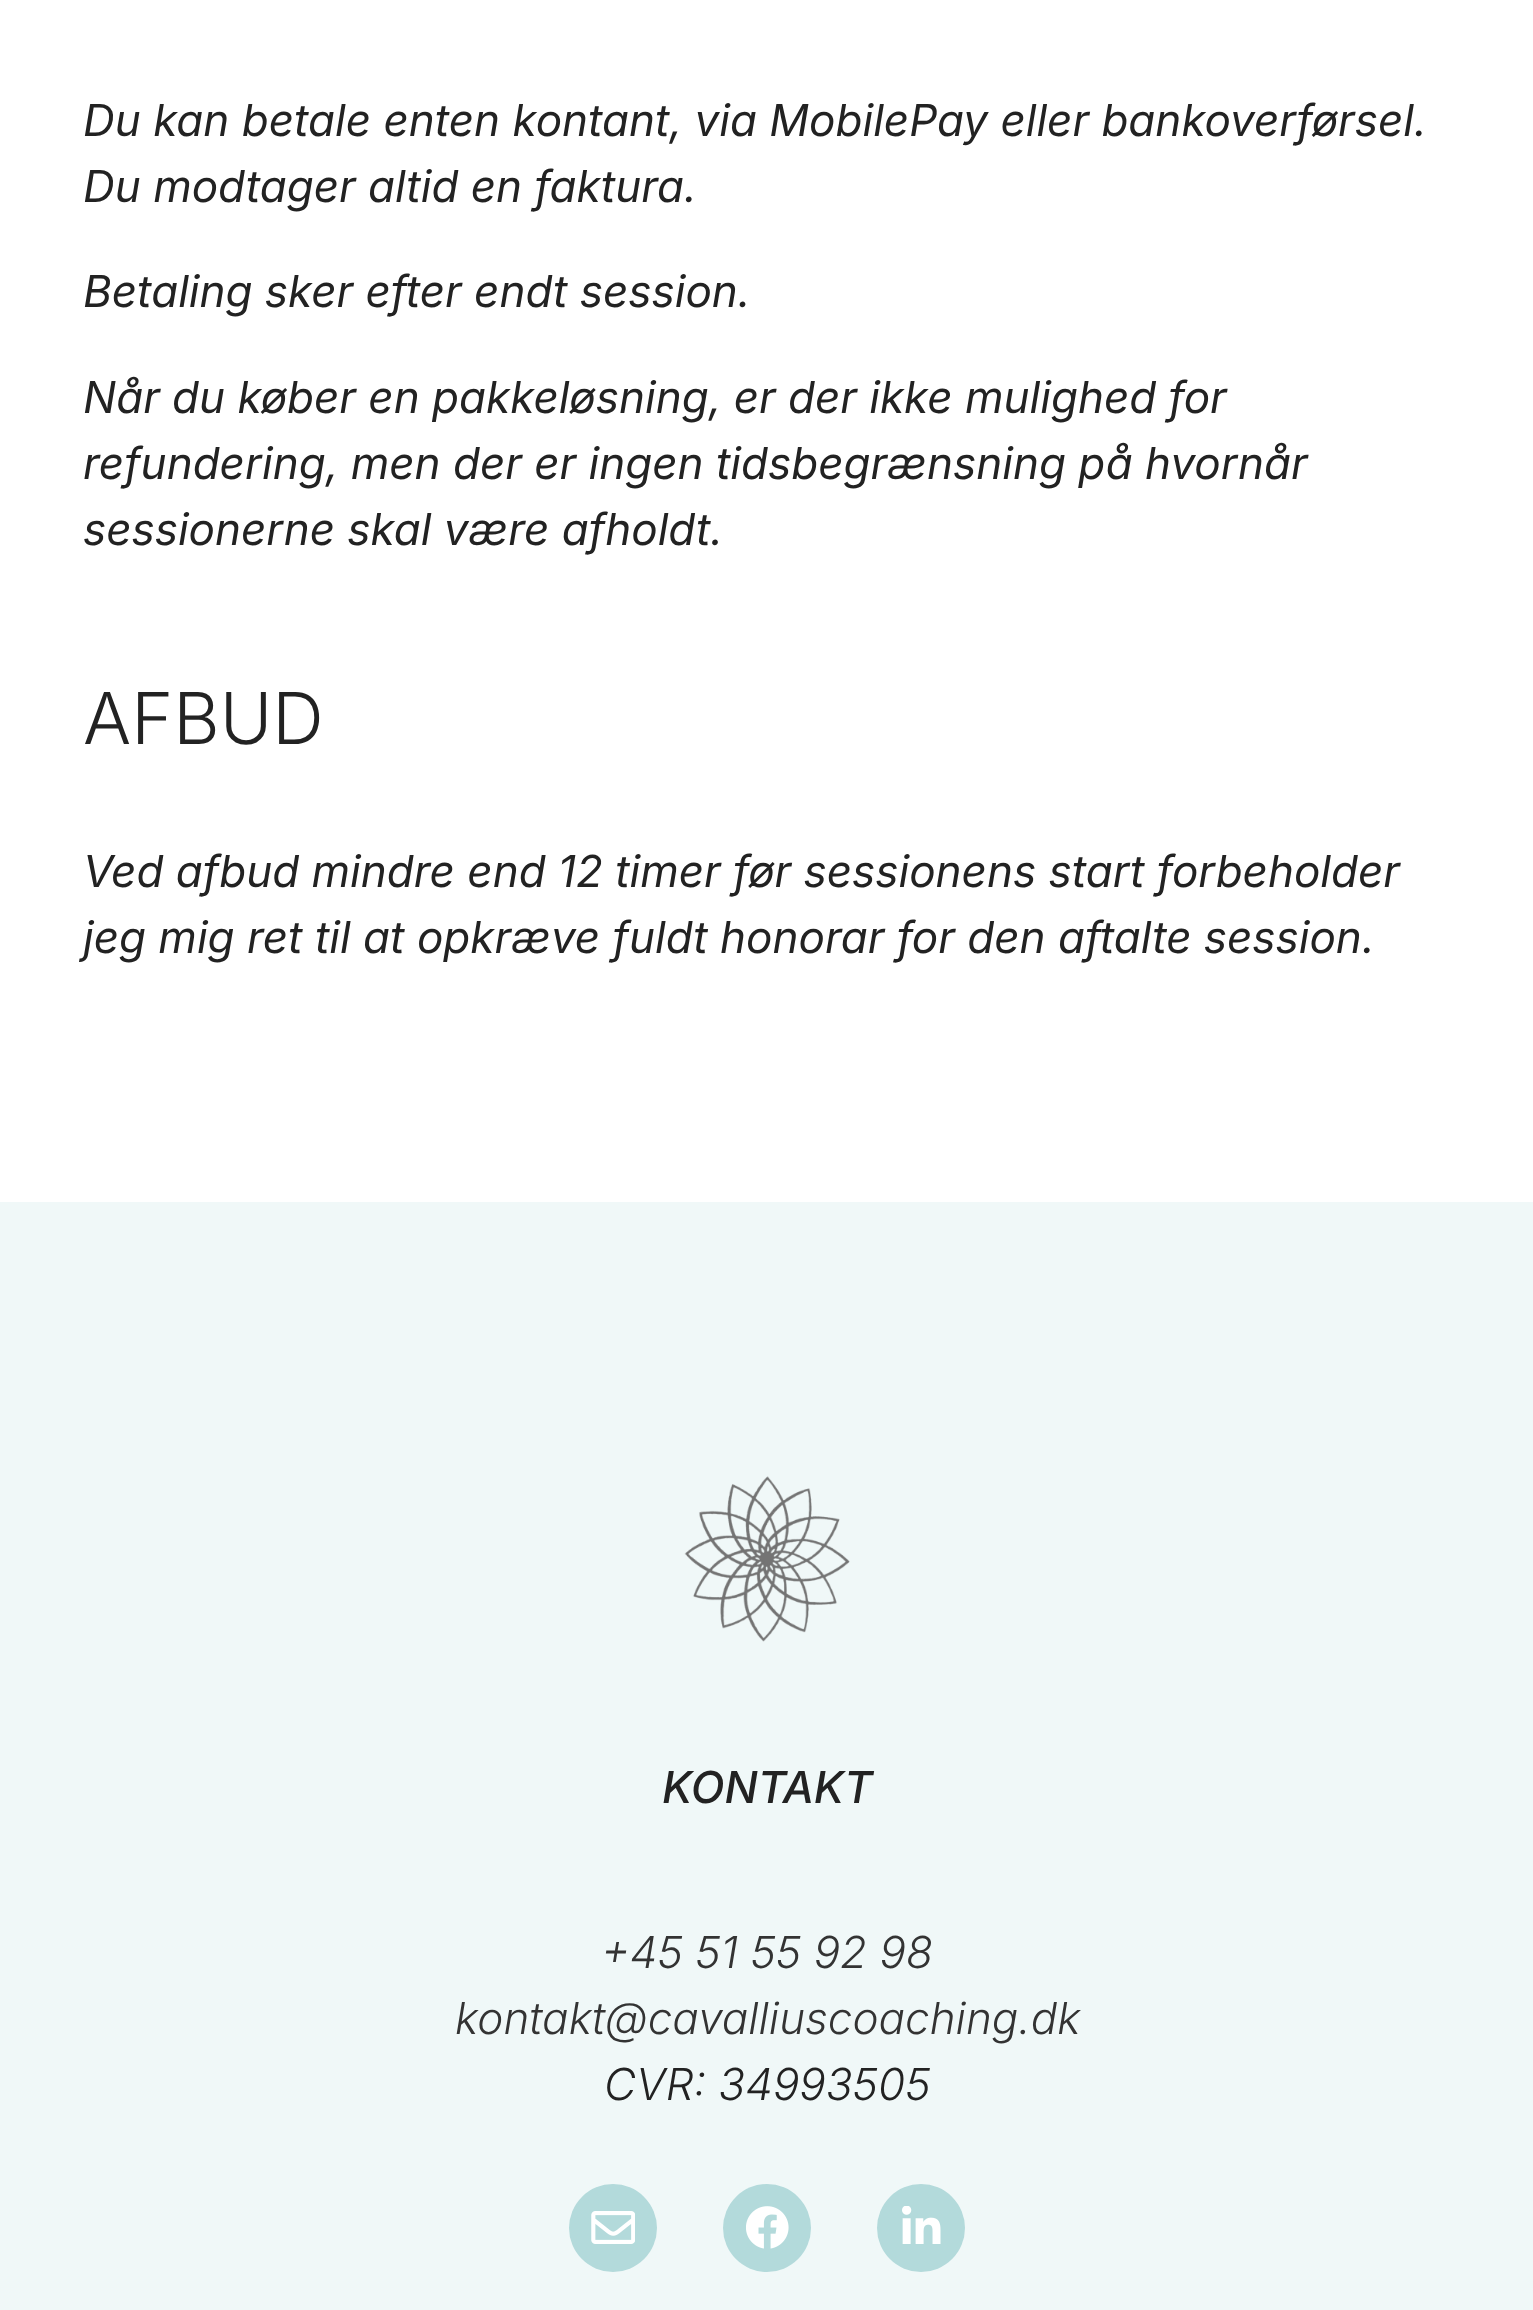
<svg xmlns="http://www.w3.org/2000/svg" width="1533" height="2310">
<rect width="100%" height="100%" fill="#fff"/>
<text x="83" y="136" style="font-family:Inter;font-size:44px;font-style:italic;fill:#222">Du kan betale enten kontant, via MobilePay eller bankoverførsel.</text>
<text x="83" y="202" style="font-family:Inter;font-size:44px;font-style:italic;fill:#222">Du modtager altid en faktura.</text>
<text x="83" y="307" style="font-family:Inter;font-size:44px;font-style:italic;fill:#222">Betaling sker efter endt session.</text>
<text x="83" y="413" style="font-family:Inter;font-size:44px;font-style:italic;fill:#222">Når du køber en pakkeløsning, er der ikke mulighed for</text>
<text x="83" y="479" style="font-family:Inter;font-size:44px;font-style:italic;fill:#222">refundering, men der er ingen tidsbegrænsning på hvornår</text>
<text x="83" y="545" style="font-family:Inter;font-size:44px;font-style:italic;fill:#222">sessionerne skal være afholdt.</text>
<text x="83" y="744" style="font-family:Inter;font-size:71.5px;font-weight:300;fill:#222">AFBUD</text>
<text x="83" y="887" style="font-family:Inter;font-size:44px;font-style:italic;fill:#222">Ved afbud mindre end 12 timer før sessionens start forbeholder</text>
<text x="83" y="953" style="font-family:Inter;font-size:44px;font-style:italic;fill:#222">jeg mig ret til at opkræve fuldt honorar for den aftalte session.</text>
<rect y="1202" width="1533" height="1108" fill="#f0f8f8"/>
<image x="684" y="1476" width="166" height="166" href="media/1.png"/>
<text x="662" y="1803" style="font-family:Inter;font-size:44px;font-weight:500;font-style:italic;fill:#222">KONTAKT</text>
<text x="601" y="1968" style="font-family:Inter;font-size:44px;font-weight:300;font-style:italic;fill:#333">+45 51 55 92 98</text>
<text x="455" y="2034" style="font-family:Inter;font-size:44px;font-weight:300;font-style:italic;fill:#333">kontakt@cavalliuscoaching.dk</text>
<text x="604" y="2100" style="font-family:Inter;font-size:44px;font-weight:300;font-style:italic;fill:#222">CVR: 34993505</text>
<circle cx="613" cy="2228" r="44" fill="#b3dadb"/>
<image x="591" y="2211" width="44" height="33" href="media/2.png"/>
<circle cx="767" cy="2228" r="44" fill="#b3dadb"/>
<image x="746" y="2206" width="43" height="43" href="media/3.png"/>
<circle cx="921" cy="2228" r="44" fill="#b3dadb"/>
<image x="902" y="2206" width="39" height="38" href="media/4.png"/>
</svg>
